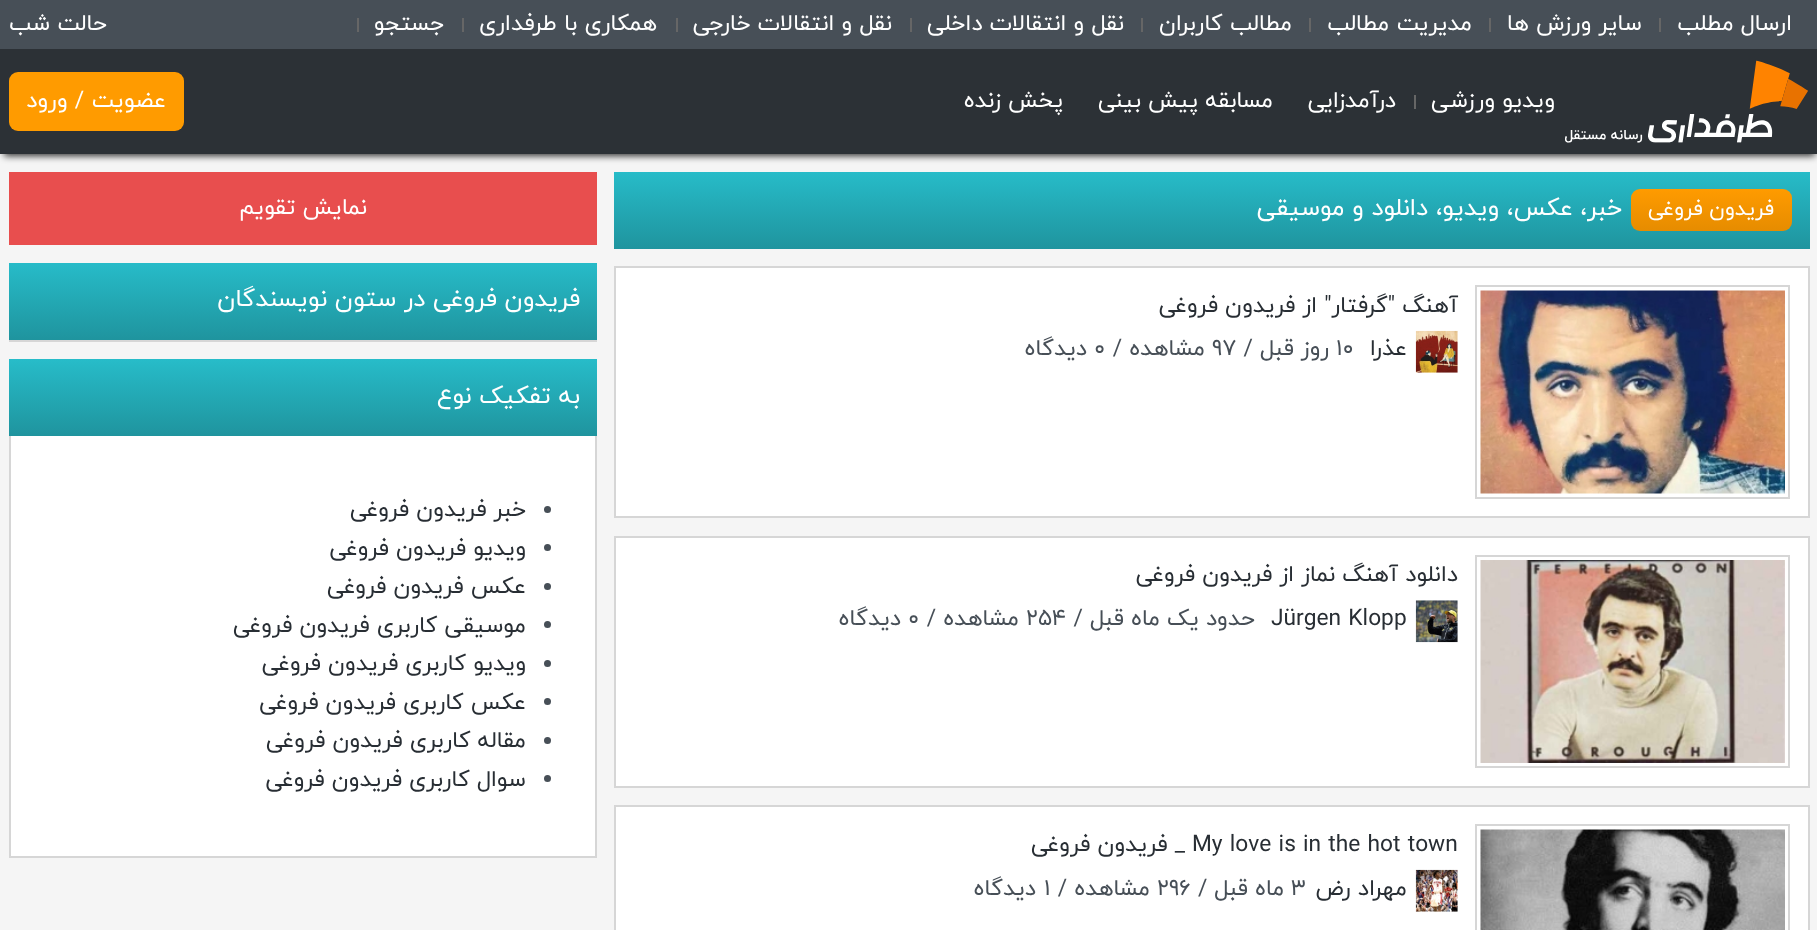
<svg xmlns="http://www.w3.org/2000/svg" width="1817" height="930">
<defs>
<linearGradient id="g1" gradientUnits="userSpaceOnUse" x1="1212" y1="171" x2="1212" y2="249"><stop offset="0" stop-color="#27bcc9"/><stop offset="1" stop-color="#1f949e"/></linearGradient>
<linearGradient id="g2" gradientUnits="userSpaceOnUse" x1="1712" y1="189" x2="1712" y2="231"><stop offset="0" stop-color="#ff9b00"/><stop offset="1" stop-color="#e68c00"/></linearGradient>
<linearGradient id="g3" gradientUnits="userSpaceOnUse" x1="303" y1="262" x2="303" y2="340"><stop offset="0" stop-color="#27bcc9"/><stop offset="1" stop-color="#1f949e"/></linearGradient>
<linearGradient id="g4" gradientUnits="userSpaceOnUse" x1="303" y1="359" x2="303" y2="436"><stop offset="0" stop-color="#27bcc9"/><stop offset="1" stop-color="#1f949e"/></linearGradient>
</defs>
<rect width="100%" height="100%" fill="#f5f5f5"/>
<rect width="1817" height="49" fill="#474f57"/>
<text x="1792" y="30" style="font-family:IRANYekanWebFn;font-size:22.75px;direction:rtl;fill:#fff">ارسال مطلب</text>
<rect x="1659" y="18" width="2" height="14" fill="#666"/>
<text x="1642" y="30" style="font-family:IRANYekanWebFn;font-size:22.75px;direction:rtl;fill:#fff">سایر ورزش ها</text>
<rect x="1489" y="18" width="2" height="14" fill="#666"/>
<text x="1472" y="30" style="font-family:IRANYekanWebFn;font-size:22.75px;direction:rtl;fill:#fff">مدیریت مطالب</text>
<rect x="1309" y="18" width="2" height="14" fill="#666"/>
<text x="1292" y="30" style="font-family:IRANYekanWebFn;font-size:22.75px;direction:rtl;fill:#fff">مطالب کاربران</text>
<rect x="1141" y="18" width="2" height="14" fill="#666"/>
<text x="1124" y="30" style="font-family:IRANYekanWebFn;font-size:22.75px;direction:rtl;fill:#fff">نقل و انتقالات داخلی</text>
<rect x="910" y="18" width="2" height="14" fill="#666"/>
<text x="892" y="30" style="font-family:IRANYekanWebFn;font-size:22.75px;direction:rtl;fill:#fff">نقل و انتقالات خارجی</text>
<rect x="676" y="18" width="2" height="14" fill="#666"/>
<text x="657" y="30" style="font-family:IRANYekanWebFn;font-size:22.75px;direction:rtl;fill:#fff">همکاری با طرفداری</text>
<rect x="462" y="18" width="2" height="14" fill="#666"/>
<text x="444" y="30" style="font-family:IRANYekanWebFn;font-size:22.75px;direction:rtl;fill:#fff">جستجو</text>
<rect x="357" y="18" width="2" height="14" fill="#666"/>
<text x="107" y="30" style="font-family:IRANYekanWebFn;font-size:22.75px;direction:rtl;fill:#fff">حالت شب</text>
<rect x="4" y="58" width="1811" height="98" fill="#000000cc" filter="blur(3.5px)"/>
<rect y="49" width="1817" height="105" fill="#2c3136"/>
<image x="1565" y="60" width="243" height="83" href="media/1.png"/>
<text x="1555" y="107" style="font-family:IRANYekanWebFn;font-size:22.75px;direction:rtl;fill:#fff">ویدیو ورزشی</text>
<rect x="1414" y="95" width="2" height="14" fill="#666"/>
<text x="1396" y="107" style="font-family:IRANYekanWebFn;font-size:22.75px;direction:rtl;fill:#fff">درآمدزایی</text>
<text x="1273" y="107" style="font-family:IRANYekanWebFn;font-size:22.75px;direction:rtl;fill:#fff">مسابقه پیش بینی</text>
<text x="1063" y="107" style="font-family:IRANYekanWebFn;font-size:22.75px;direction:rtl;fill:#fff">پخش زنده</text>
<rect x="9" y="72" width="175" height="59" rx="9" fill="#ff9b00"/>
<text x="166" y="107" style="font-family:IRANYekanWebFn;font-size:22.75px;direction:rtl;fill:#fff">عضویت / ورود</text>
<rect x="614" y="172" width="1196" height="77" fill="url(#g1)"/>
<rect x="1631" y="189" width="161" height="42" rx="9" fill="url(#g2)"/>
<text x="1774" y="215" style="font-family:IRANYekanWebFn;font-size:21px;direction:rtl;fill:#fff">فریدون فروغی</text>
<text x="1622" y="215" style="font-family:IRANYekanWebFn;font-size:24.5px;direction:rtl;fill:#fff">خبر، عکس، ویدیو، دانلود و موسیقی</text>
<rect x="615" y="267" width="1194" height="250" fill="#fff" stroke="#d6d6d6" stroke-width="2"/>
<rect x="1476" y="286" width="313" height="212" fill="none" stroke="#d6d6d6" stroke-width="2"/>
<image x="1480" y="290" width="305" height="204" href="media/2.png"/>
<text x="1458" y="312" style="font-family:IRANYekanWebFn;font-size:22.75px;direction:rtl;fill:#282e34">آهنگ "گرفتار" از فریدون فروغی</text>
<image x="1415" y="330" width="43" height="43" href="media/3.png"/>
<text x="1407" y="355" style="font-family:IRANYekanWebFn;font-size:22.75px;direction:rtl;fill:#282e34">‌عذرا ‌</text>
<text x="1336" y="355" style="font-family:IRANYekanWebFn;font-size:22.75px;fill:#474f57">10</text>
<text x="1329" y="355" style="font-family:IRANYekanWebFn;font-size:22.75px;direction:rtl;fill:#474f57">روز قبل</text>
<text x="1212" y="355" style="font-family:IRANYekanWebFn;font-size:22.75px;fill:#474f57">97 /</text>
<text x="1205" y="355" style="font-family:IRANYekanWebFn;font-size:22.75px;direction:rtl;fill:#474f57">مشاهده /</text>
<text x="1094" y="355" style="font-family:IRANYekanWebFn;font-size:22.75px;fill:#474f57">0</text>
<text x="1087" y="355" style="font-family:IRANYekanWebFn;font-size:22.75px;direction:rtl;fill:#474f57">دیدگاه</text>
<rect x="615" y="537" width="1194" height="250" fill="#fff" stroke="#d6d6d6" stroke-width="2"/>
<rect x="1476" y="556" width="313" height="211" fill="none" stroke="#d6d6d6" stroke-width="2"/>
<image x="1480" y="560" width="305" height="203" href="media/4.png"/>
<text x="1458" y="581" style="font-family:IRANYekanWebFn;font-size:22.75px;direction:rtl;fill:#282e34">دانلود آهنگ نماز از فریدون فروغی</text>
<image x="1415" y="600" width="43" height="43" href="media/5.png"/>
<text x="1271" y="625" style="font-family:IRANYekanWebFn;font-size:22.75px;fill:#282e34">Jürgen Klopp</text>
<text x="1255" y="625" style="font-family:IRANYekanWebFn;font-size:22.75px;direction:rtl;fill:#474f57">حدود یک ماه قبل</text>
<text x="1026" y="625" style="font-family:IRANYekanWebFn;font-size:22.75px;fill:#474f57">254 /</text>
<text x="1019" y="625" style="font-family:IRANYekanWebFn;font-size:22.75px;direction:rtl;fill:#474f57">مشاهده /</text>
<text x="908" y="625" style="font-family:IRANYekanWebFn;font-size:22.75px;fill:#474f57">0</text>
<text x="901" y="625" style="font-family:IRANYekanWebFn;font-size:22.75px;direction:rtl;fill:#474f57">دیدگاه</text>
<rect x="615" y="806" width="1194" height="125" fill="#fff" stroke="#d6d6d6" stroke-width="2"/>
<rect x="1476" y="825" width="313" height="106" fill="none" stroke="#d6d6d6" stroke-width="2"/>
<image x="1480" y="829" width="305" height="101" href="media/6.png"/>
<text x="1192" y="851" style="font-family:IRANYekanWebFn;font-size:22.75px;fill:#282e34">My love is in the hot town</text>
<text x="1185" y="851" style="font-family:IRANYekanWebFn;font-size:22.75px;direction:rtl;fill:#282e34">_ فریدون فروغی</text>
<image x="1415" y="869" width="43" height="43" href="media/7.png"/>
<text x="1407" y="895" style="font-family:IRANYekanWebFn;font-size:22.75px;direction:rtl;fill:#282e34">مهراد رض</text>
<text x="1291" y="895" style="font-family:IRANYekanWebFn;font-size:22.75px;fill:#474f57">3</text>
<text x="1284" y="895" style="font-family:IRANYekanWebFn;font-size:22.75px;direction:rtl;fill:#474f57">ماه قبل</text>
<text x="1157" y="895" style="font-family:IRANYekanWebFn;font-size:22.75px;fill:#474f57">296 /</text>
<text x="1150" y="895" style="font-family:IRANYekanWebFn;font-size:22.75px;direction:rtl;fill:#474f57">مشاهده /</text>
<text x="1044" y="895" style="font-family:IRANYekanWebFn;font-size:22.75px;fill:#474f57">1</text>
<text x="1036" y="895" style="font-family:IRANYekanWebFn;font-size:22.75px;direction:rtl;fill:#474f57">دیدگاه</text>
<rect x="9" y="172" width="588" height="73" fill="#e84e4e"/>
<text x="367" y="214" style="font-family:IRANYekanWebFn;font-size:22.75px;direction:rtl;fill:#fff">نمایش تقویم</text>
<rect x="9" y="263" width="588" height="77" fill="url(#g3)"/>
<text x="580" y="306" style="font-family:IRANYekanWebFn;font-size:24.5px;direction:rtl;fill:#fff">فریدون فروغی در ستون نویسندگان</text>
<rect x="9" y="340" width="588" height="2" fill="#d6d6d6"/>
<rect x="9" y="359" width="588" height="77" fill="url(#g4)"/>
<text x="580" y="403" style="font-family:IRANYekanWebFn;font-size:24.5px;direction:rtl;fill:#fff">به تفکیک نوع</text>
<rect x="11" y="436" width="584" height="420" fill="#fff"/>
<rect x="595" y="436" width="2" height="422" fill="#d6d6d6"/>
<rect x="9" y="856" width="588" height="2" fill="#d6d6d6"/>
<rect x="9" y="436" width="2" height="422" fill="#d6d6d6"/>
<circle cx="547.5" cy="509.5" r="3.5" fill="#474f57"/>
<text x="526" y="516" style="font-family:IRANYekanWebFn;font-size:22.75px;direction:rtl;fill:#282e34">خبر فریدون فروغی</text>
<circle cx="547.5" cy="547.5" r="3.5" fill="#474f57"/>
<text x="526" y="555" style="font-family:IRANYekanWebFn;font-size:22.75px;direction:rtl;fill:#282e34">ویدیو فریدون فروغی</text>
<circle cx="547.5" cy="586.5" r="3.5" fill="#474f57"/>
<text x="526" y="593" style="font-family:IRANYekanWebFn;font-size:22.75px;direction:rtl;fill:#282e34">عکس فریدون فروغی</text>
<circle cx="547.5" cy="624.5" r="3.5" fill="#474f57"/>
<text x="526" y="632" style="font-family:IRANYekanWebFn;font-size:22.75px;direction:rtl;fill:#282e34">موسیقی کاربری فریدون فروغی</text>
<circle cx="547.5" cy="663.5" r="3.5" fill="#474f57"/>
<text x="526" y="670" style="font-family:IRANYekanWebFn;font-size:22.75px;direction:rtl;fill:#282e34">ویدیو کاربری فریدون فروغی</text>
<circle cx="547.5" cy="701.5" r="3.5" fill="#474f57"/>
<text x="526" y="709" style="font-family:IRANYekanWebFn;font-size:22.75px;direction:rtl;fill:#282e34">عکس کاربری فریدون فروغی</text>
<circle cx="547.5" cy="740.5" r="3.5" fill="#474f57"/>
<text x="526" y="747" style="font-family:IRANYekanWebFn;font-size:22.75px;direction:rtl;fill:#282e34">مقاله کاربری فریدون فروغی</text>
<circle cx="547.5" cy="778.5" r="3.5" fill="#474f57"/>
<text x="526" y="786" style="font-family:IRANYekanWebFn;font-size:22.75px;direction:rtl;fill:#282e34">سوال کاربری فریدون فروغی</text>
</svg>
